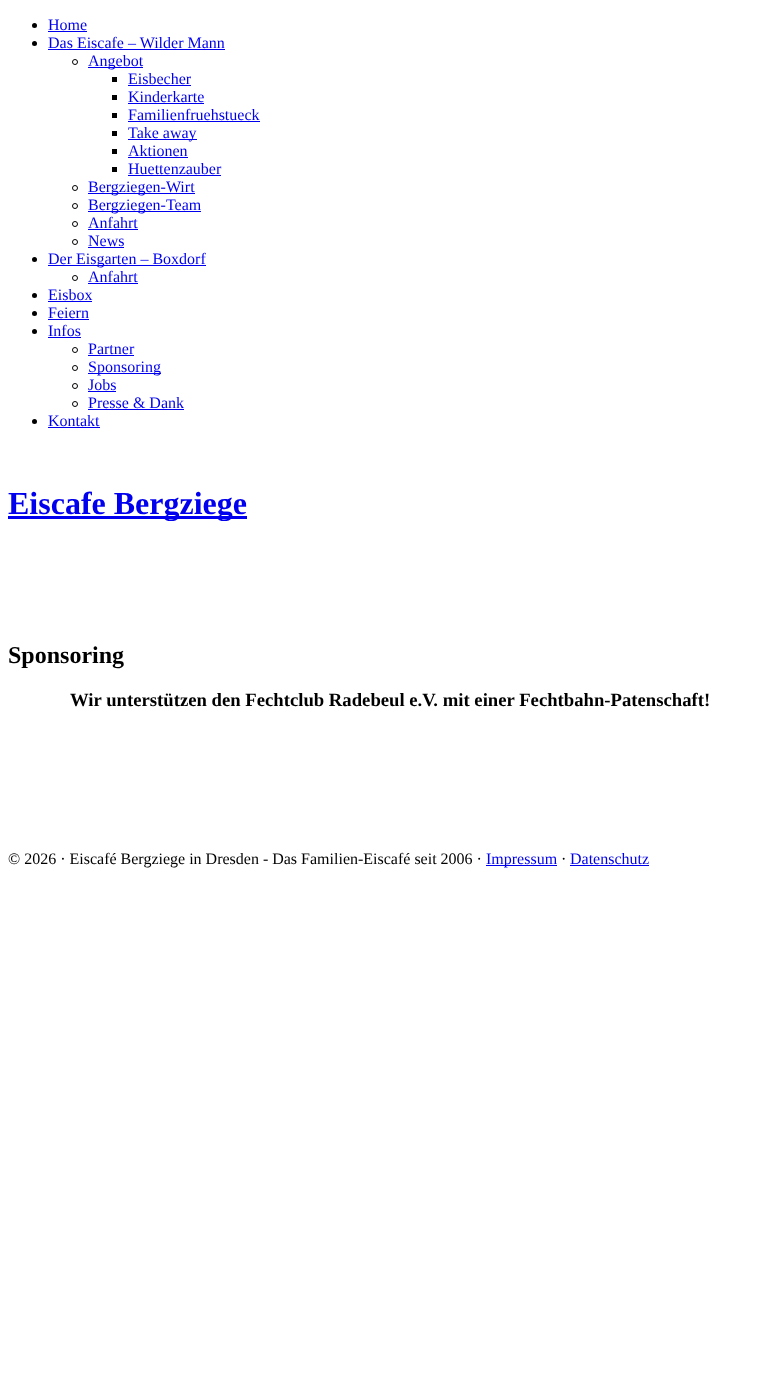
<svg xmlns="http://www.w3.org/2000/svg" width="781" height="1375">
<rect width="100%" height="100%" fill="#fff"/>
<circle cx="34.5" cy="25.5" r="2.5" fill="#000"/>
<text x="48" y="30" style="font-family:Liberation Serif;font-size:16px;fill:#00e">Home</text>
<rect x="48" y="31" width="39" height="1" fill="#00e"/>
<circle cx="34.5" cy="43.5" r="2.5" fill="#000"/>
<text x="48" y="48" style="font-family:Liberation Serif;font-size:16px;fill:#00e">Das Eiscafe – Wilder Mann</text>
<rect x="48" y="49" width="177" height="1" fill="#00e"/>
<circle cx="75" cy="62" r="2.5" fill="none" stroke="#000"/>
<rect x="88" y="67" width="55" height="1" fill="#00e"/>
<text x="88" y="66" style="font-family:Liberation Serif;font-size:16px;fill:#00e">Angebot</text>
<rect x="112" y="77" width="5" height="5" fill="#000"/>
<text x="128" y="84" style="font-family:Liberation Serif;font-size:16px;fill:#00e">Eisbecher</text>
<rect x="128" y="85" width="63" height="1" fill="#00e"/>
<rect x="112" y="95" width="5" height="5" fill="#000"/>
<text x="128" y="102" style="font-family:Liberation Serif;font-size:16px;fill:#00e">Kinderkarte</text>
<rect x="128" y="103" width="76" height="1" fill="#00e"/>
<rect x="112" y="113" width="5" height="5" fill="#000"/>
<text x="128" y="120" style="font-family:Liberation Serif;font-size:16px;fill:#00e">Familienfruehstueck</text>
<rect x="128" y="121" width="132" height="1" fill="#00e"/>
<rect x="112" y="131" width="5" height="5" fill="#000"/>
<rect x="128" y="139" width="69" height="1" fill="#00e"/>
<text x="128" y="138" style="font-family:Liberation Serif;font-size:16px;fill:#00e">Take away</text>
<rect x="112" y="149" width="5" height="5" fill="#000"/>
<text x="128" y="156" style="font-family:Liberation Serif;font-size:16px;fill:#00e">Aktionen</text>
<rect x="128" y="157" width="60" height="1" fill="#00e"/>
<rect x="112" y="167" width="5" height="5" fill="#000"/>
<text x="128" y="174" style="font-family:Liberation Serif;font-size:16px;fill:#00e">Huettenzauber</text>
<rect x="128" y="175" width="93" height="1" fill="#00e"/>
<circle cx="75" cy="188" r="2.5" fill="none" stroke="#000"/>
<rect x="88" y="193" width="107" height="1" fill="#00e"/>
<text x="88" y="192" style="font-family:Liberation Serif;font-size:16px;fill:#00e">Bergziegen-Wirt</text>
<circle cx="75" cy="206" r="2.5" fill="none" stroke="#000"/>
<rect x="88" y="211" width="113" height="1" fill="#00e"/>
<text x="88" y="210" style="font-family:Liberation Serif;font-size:16px;fill:#00e">Bergziegen-Team</text>
<circle cx="75" cy="224" r="2.5" fill="none" stroke="#000"/>
<text x="88" y="228" style="font-family:Liberation Serif;font-size:16px;fill:#00e">Anfahrt</text>
<rect x="88" y="229" width="50" height="1" fill="#00e"/>
<circle cx="75" cy="242" r="2.5" fill="none" stroke="#000"/>
<text x="88" y="246" style="font-family:Liberation Serif;font-size:16px;fill:#00e">News</text>
<rect x="88" y="247" width="36" height="1" fill="#00e"/>
<circle cx="34.5" cy="259.5" r="2.5" fill="#000"/>
<rect x="48" y="265" width="158" height="1" fill="#00e"/>
<text x="48" y="264" style="font-family:Liberation Serif;font-size:16px;fill:#00e">Der Eisgarten – Boxdorf</text>
<circle cx="75" cy="278" r="2.5" fill="none" stroke="#000"/>
<text x="88" y="282" style="font-family:Liberation Serif;font-size:16px;fill:#00e">Anfahrt</text>
<rect x="88" y="283" width="50" height="1" fill="#00e"/>
<circle cx="34.5" cy="295.5" r="2.5" fill="#000"/>
<text x="48" y="300" style="font-family:Liberation Serif;font-size:16px;fill:#00e">Eisbox</text>
<rect x="48" y="301" width="44" height="1" fill="#00e"/>
<circle cx="34.5" cy="313.5" r="2.5" fill="#000"/>
<text x="48" y="318" style="font-family:Liberation Serif;font-size:16px;fill:#00e">Feiern</text>
<rect x="48" y="319" width="41" height="1" fill="#00e"/>
<circle cx="34.5" cy="331.5" r="2.5" fill="#000"/>
<text x="48" y="336" style="font-family:Liberation Serif;font-size:16px;fill:#00e">Infos</text>
<rect x="48" y="337" width="33" height="1" fill="#00e"/>
<circle cx="75" cy="350" r="2.5" fill="none" stroke="#000"/>
<text x="88" y="354" style="font-family:Liberation Serif;font-size:16px;fill:#00e">Partner</text>
<rect x="88" y="355" width="46" height="1" fill="#00e"/>
<circle cx="75" cy="368" r="2.5" fill="none" stroke="#000"/>
<rect x="88" y="373" width="73" height="1" fill="#00e"/>
<text x="88" y="372" style="font-family:Liberation Serif;font-size:16px;fill:#00e">Sponsoring</text>
<circle cx="75" cy="386" r="2.5" fill="none" stroke="#000"/>
<text x="88" y="390" style="font-family:Liberation Serif;font-size:16px;fill:#00e">Jobs</text>
<rect x="88" y="391" width="28" height="1" fill="#00e"/>
<circle cx="75" cy="404" r="2.5" fill="none" stroke="#000"/>
<text x="88" y="408" style="font-family:Liberation Serif;font-size:16px;fill:#00e">Presse &amp; Dank</text>
<rect x="88" y="409" width="96" height="1" fill="#00e"/>
<circle cx="34.5" cy="421.5" r="2.5" fill="#000"/>
<text x="48" y="426" style="font-family:Liberation Serif;font-size:16px;fill:#00e">Kontakt</text>
<rect x="48" y="427" width="52" height="1" fill="#00e"/>
<rect x="8" y="516" width="239" height="3" fill="#00e"/>
<text x="8" y="514" style="font-family:Liberation Serif;font-size:32px;font-weight:bold;fill:#00e">Eiscafe Bergziege</text>
<text x="8" y="663" style="font-family:Liberation Serif;font-size:24px;font-weight:bold;fill:#000">Sponsoring</text>
<text x="70" y="706" style="font-family:Liberation Serif;font-size:18.7px;font-weight:bold;fill:#000">Wir unterstützen den Fechtclub Radebeul e.V. mit einer Fechtbahn-Patenschaft!</text>
<text x="8" y="864" style="font-family:Liberation Serif;font-size:16px;fill:#000">© 2026 · Eiscafé Bergziege in Dresden - Das Familien-Eiscafé seit 2006 ·</text>
<rect x="486" y="865" width="71" height="1" fill="#00e"/>
<text x="486" y="864" style="font-family:Liberation Serif;font-size:16px;fill:#00e">Impressum</text>
<text x="561" y="864" style="font-family:Liberation Serif;font-size:16px;fill:#000">·</text>
<text x="570" y="864" style="font-family:Liberation Serif;font-size:16px;fill:#00e">Datenschutz</text>
<rect x="570" y="865" width="79" height="1" fill="#00e"/>
</svg>
